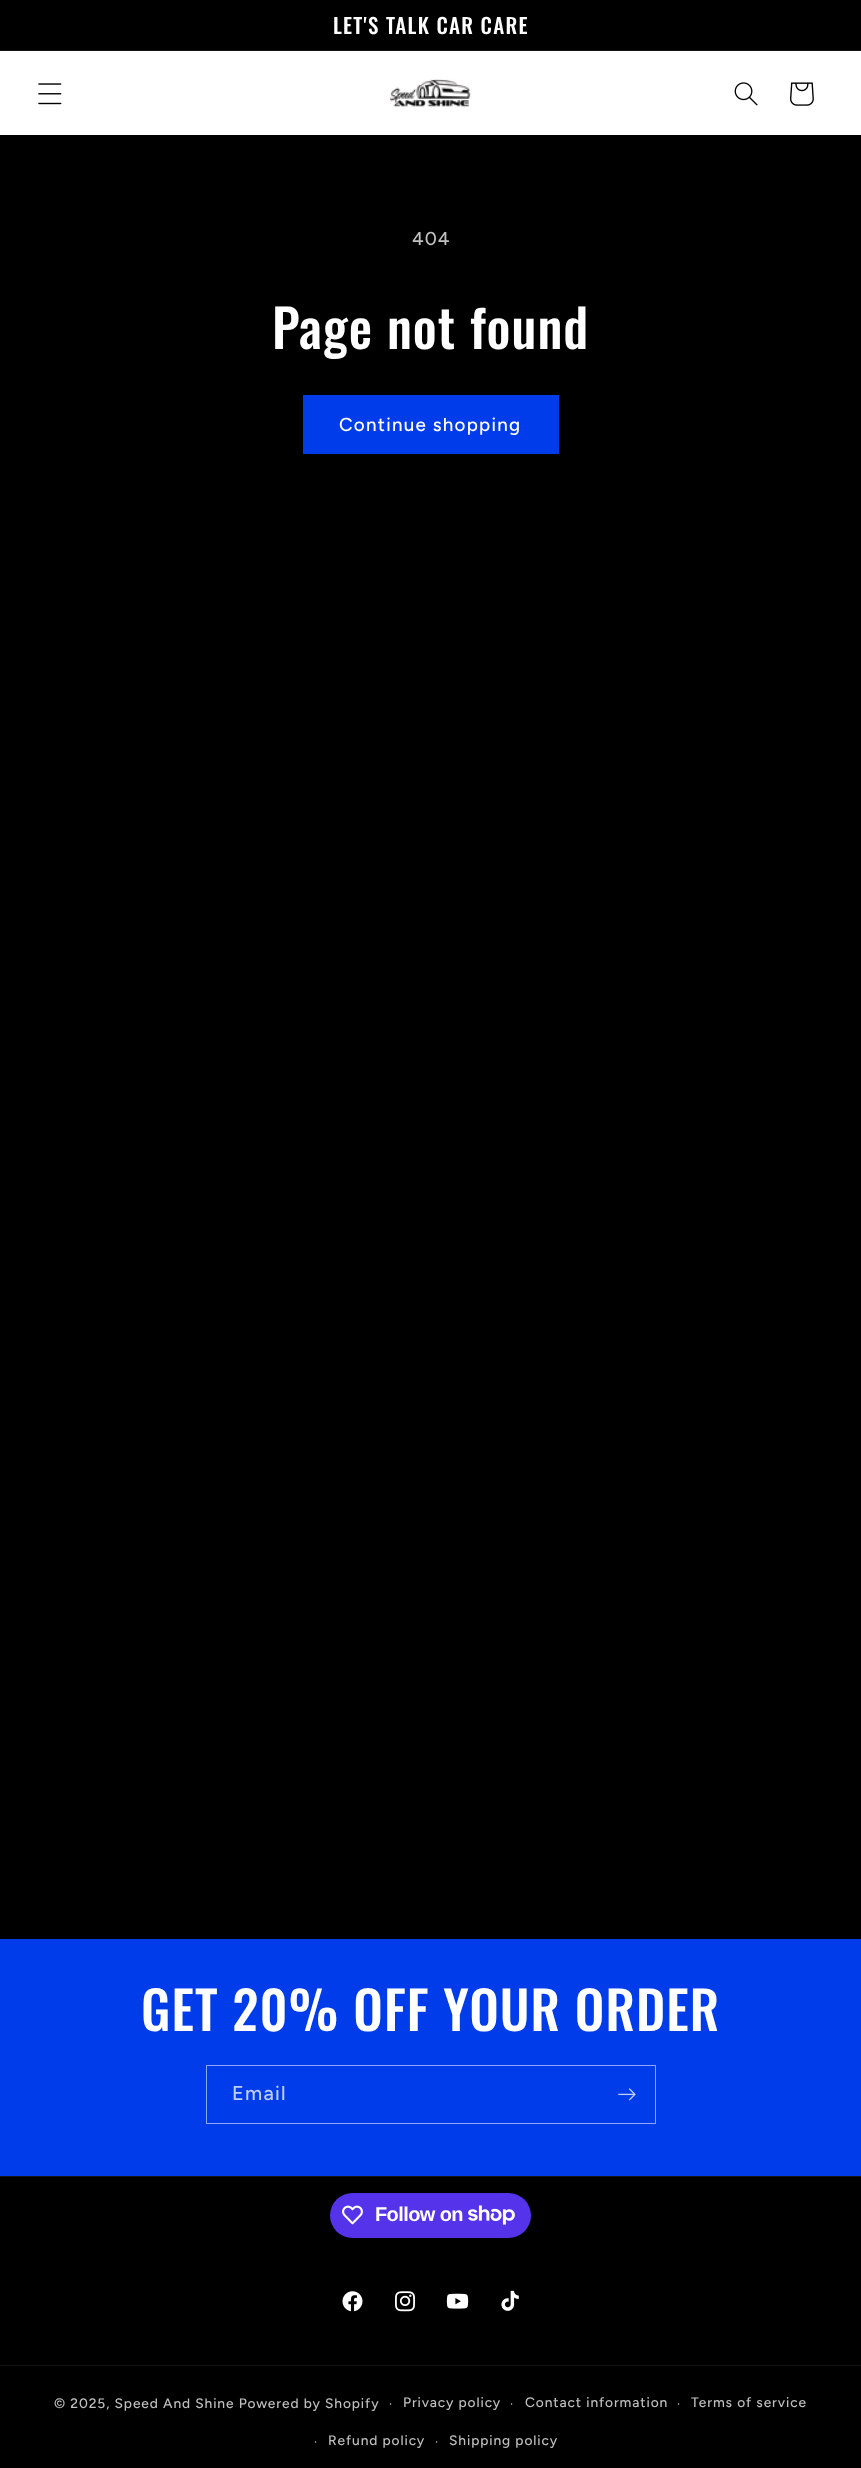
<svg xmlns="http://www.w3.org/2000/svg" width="861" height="2468">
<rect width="100%" height="100%" fill="#000"/>
<rect y="50" width="861" height="1" fill="#141414"/>
<text x="333" y="34" style="font-family:Oswald;font-size:21px;font-weight:500;letter-spacing:1.25px;fill:#fff">LET'S TALK CAR CARE</text>
<rect y="51" width="861" height="84" fill="#fff"/>
<image x="38" y="83" width="24" height="22" href="media/1.png"/>
<image x="389" y="78" width="82" height="29" href="media/2.png"/>
<image x="734" y="82" width="24" height="24" href="media/3.png"/>
<image x="790" y="82" width="24" height="24" href="media/4.png"/>
<text x="412" y="245" style="font-family:Figtree;font-size:18.75px;font-weight:500;letter-spacing:1px;fill:#bfbfbf">404</text>
<text x="272" y="349" style="font-family:Oswald;font-size:52.5px;font-weight:500;letter-spacing:1.05px;fill:#fff">Page not found</text>
<rect x="303" y="395" width="256" height="59" fill="#003ce9"/>
<text x="339" y="431" style="font-family:Figtree;font-size:18.75px;font-weight:500;letter-spacing:1.25px;fill:#fff">Continue shopping</text>
<rect y="1939" width="861" height="237" fill="#003ce9"/>
<text x="141" y="2031" style="font-family:Oswald;font-size:52.5px;font-weight:500;letter-spacing:1.05px;fill:#fff">GET 20% OFF YOUR ORDER</text>
<rect x="206.5" y="2065.5" width="449" height="58" fill="none" stroke="#8ca7f5"/>
<text x="232" y="2100" style="font-family:Figtree;font-size:20px;font-weight:500;letter-spacing:1.25px;fill:#bfcefa">Email</text>
<image x="618" y="2088" width="18" height="13" href="media/5.png"/>
<rect y="2176" width="861" height="1" fill="#141414"/>
<rect x="330" y="2193" width="201" height="45" rx="22.5" fill="#5433eb"/>
<image x="342" y="2205" width="21" height="20" href="media/6.png"/>
<text x="375" y="2221" style="font-family:Liberation Sans;font-size:20px;font-weight:bold;letter-spacing:-0.6px;fill:#fff">Follow on</text>
<image x="468" y="2205" width="47" height="20" href="media/7.png"/>
<image x="342" y="2291" width="21" height="21" href="media/8.png"/>
<image x="395" y="2291" width="20" height="21" href="media/9.png"/>
<image x="446" y="2293" width="23" height="16" href="media/10.png"/>
<image x="501" y="2290" width="18" height="21" href="media/11.png"/>
<rect y="2365" width="861" height="1" fill="#141414"/>
<text x="54" y="2408" style="font-family:Figtree;font-size:13.75px;font-weight:500;letter-spacing:0.9px;fill:#bfbfbf">© 2025, Speed And Shine Powered by Shopify</text>
<text x="389" y="2408" style="font-family:Figtree;font-size:12px;font-weight:500;letter-spacing:0.9px;fill:#bfbfbf">·</text>
<text x="403" y="2407" style="font-family:Figtree;font-size:13.75px;font-weight:500;letter-spacing:0.9px;fill:#bfbfbf">Privacy policy</text>
<text x="510" y="2408" style="font-family:Figtree;font-size:12px;font-weight:500;letter-spacing:0.9px;fill:#bfbfbf">·</text>
<text x="525" y="2407" style="font-family:Figtree;font-size:13.75px;font-weight:500;letter-spacing:0.9px;fill:#bfbfbf">Contact information</text>
<text x="677" y="2408" style="font-family:Figtree;font-size:12px;font-weight:500;letter-spacing:0.9px;fill:#bfbfbf">·</text>
<text x="691" y="2407" style="font-family:Figtree;font-size:13.75px;font-weight:500;letter-spacing:0.9px;fill:#bfbfbf">Terms of service</text>
<text x="314" y="2446" style="font-family:Figtree;font-size:12px;font-weight:500;letter-spacing:0.9px;fill:#bfbfbf">·</text>
<text x="328" y="2445" style="font-family:Figtree;font-size:13.75px;font-weight:500;letter-spacing:0.9px;fill:#bfbfbf">Refund policy</text>
<text x="435" y="2446" style="font-family:Figtree;font-size:12px;font-weight:500;letter-spacing:0.9px;fill:#bfbfbf">·</text>
<text x="449" y="2445" style="font-family:Figtree;font-size:13.75px;font-weight:500;letter-spacing:0.9px;fill:#bfbfbf">Shipping policy</text>
</svg>
